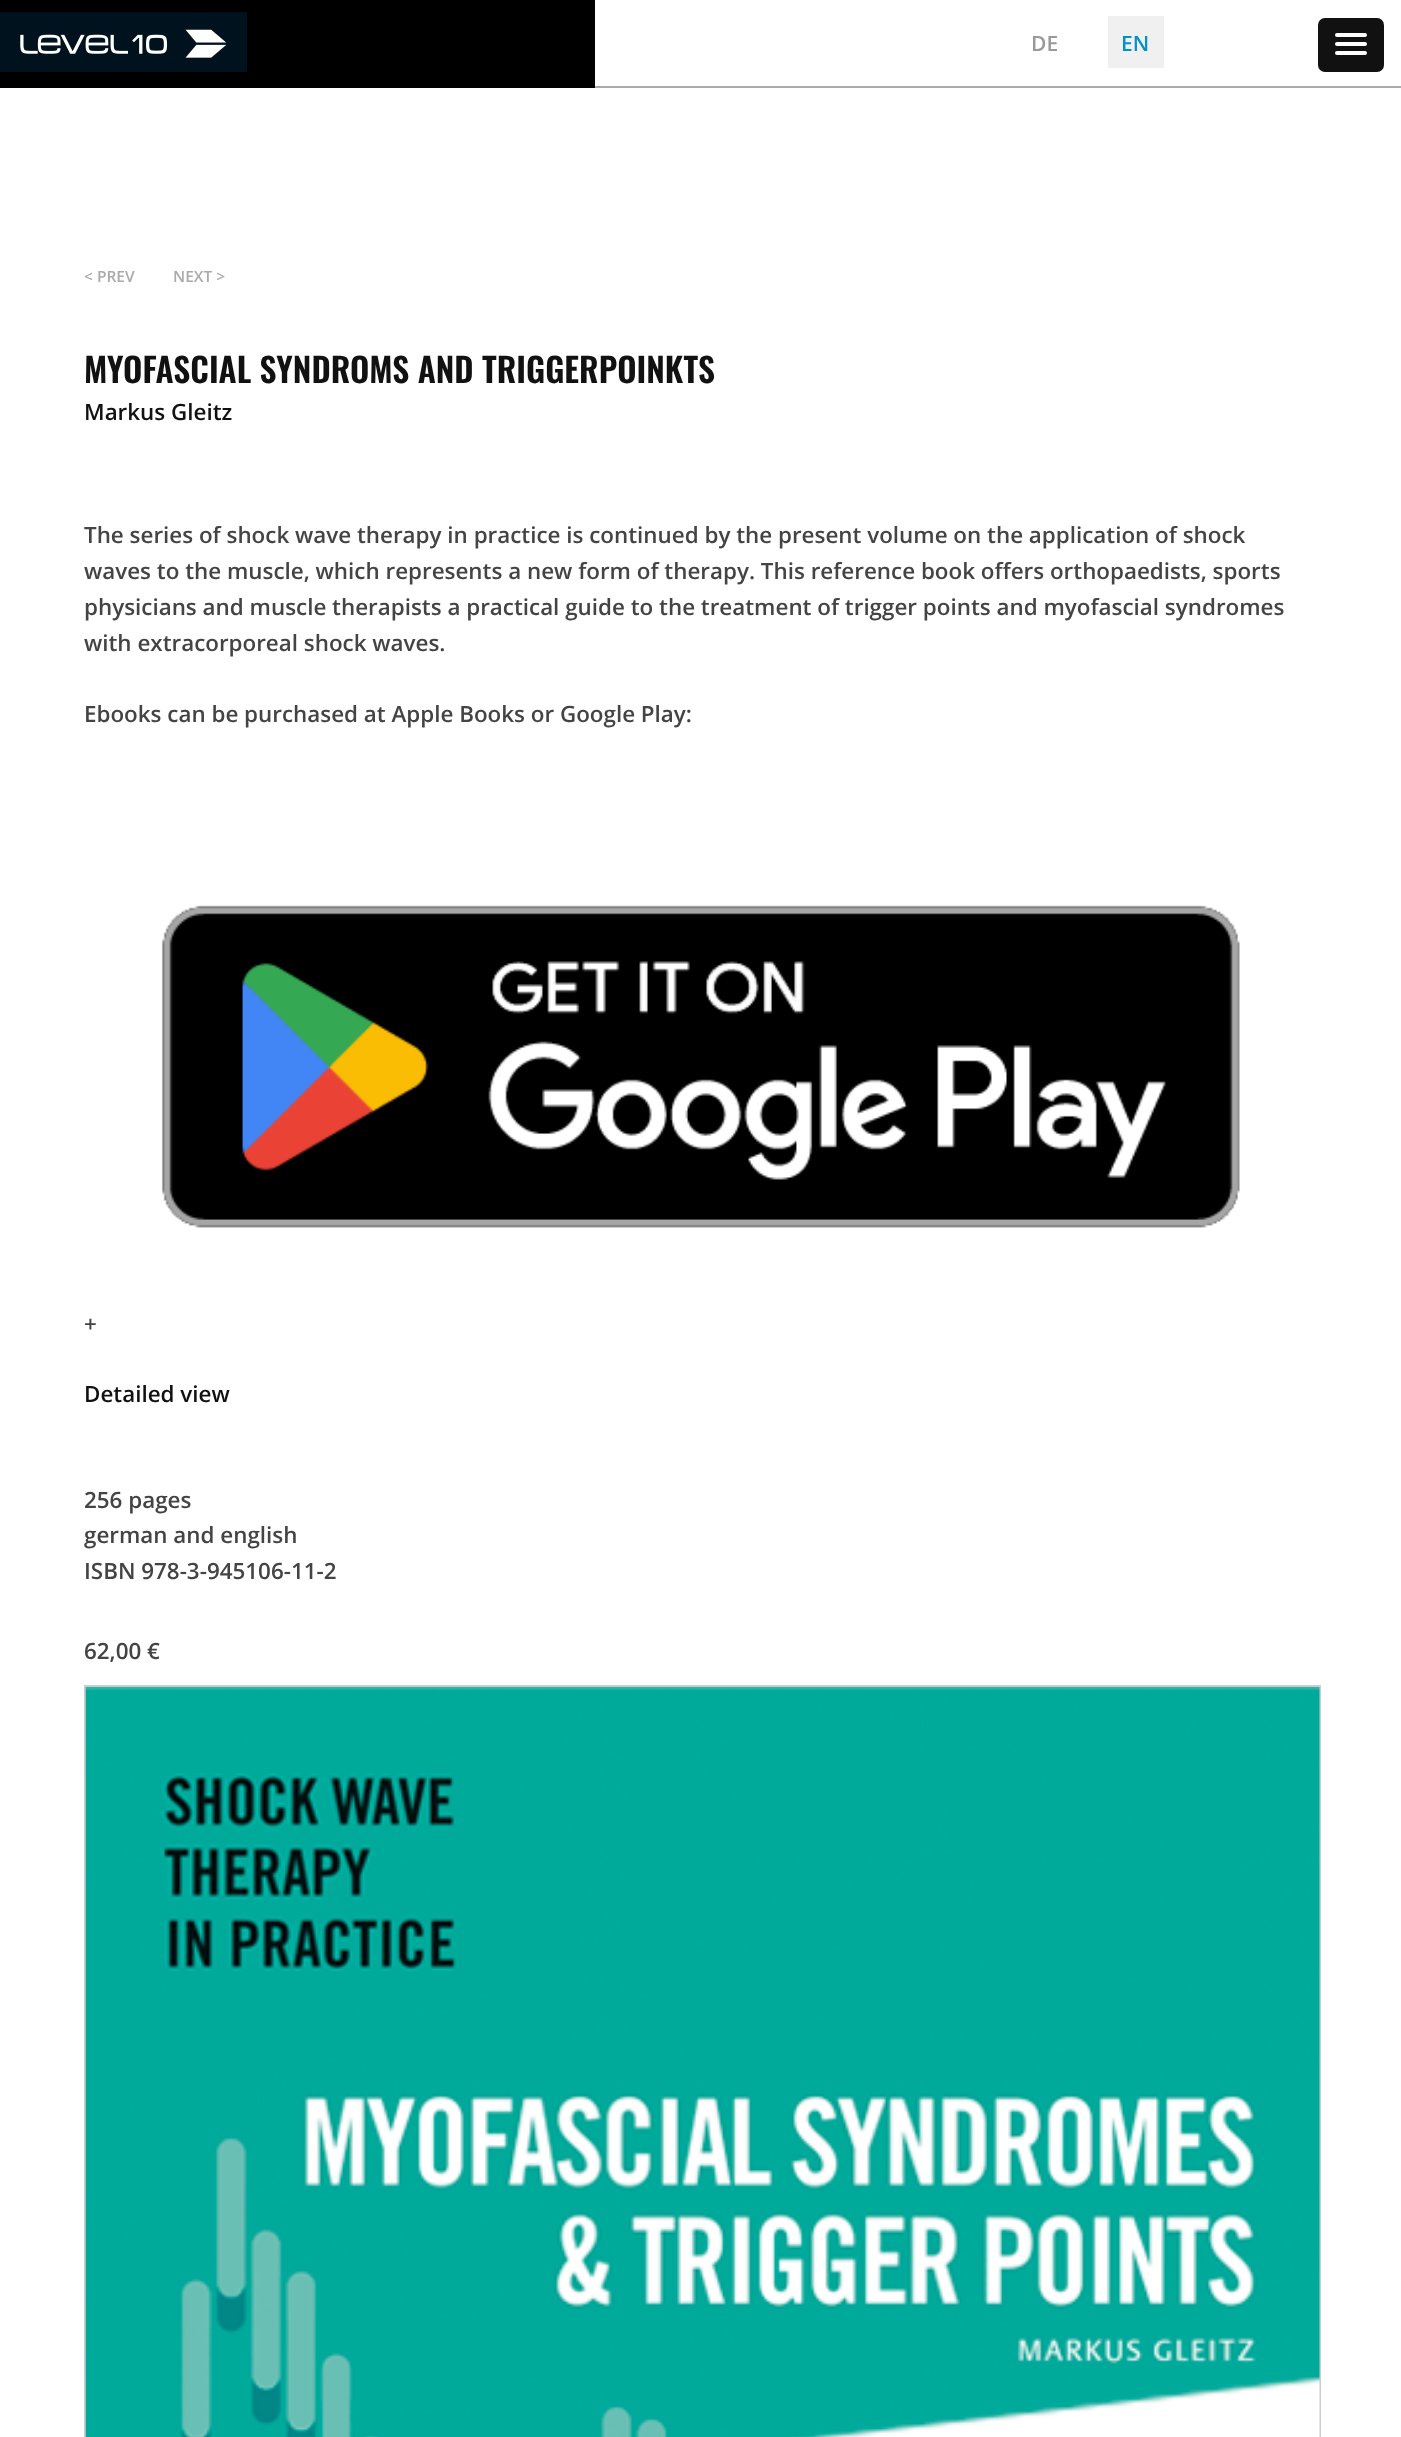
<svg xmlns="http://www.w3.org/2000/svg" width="1401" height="2437">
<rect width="100%" height="100%" fill="#fff"/>
<rect x="595" y="86" width="806" height="2" fill="#aaa"/>
<rect x="1318" y="18" width="66" height="54" rx="7" fill="#111"/>
<rect x="1335" y="33" width="32" height="4" rx="2" fill="#fff"/>
<rect x="1335" y="42" width="32" height="4" rx="2" fill="#fff"/>
<rect x="1335" y="51" width="32" height="4" rx="2" fill="#fff"/>
<rect width="595" height="88" fill="#000"/>
<image x="0" y="12" width="247" height="60" href="media/1.png"/>
<text x="1031" y="51" style="font-family:Open Sans;font-size:21px;font-weight:600;fill:#999">DE</text>
<rect x="1108" y="16" width="56" height="52" fill="#f0f0f0"/>
<text x="1121" y="51" style="font-family:Open Sans;font-size:21px;font-weight:600;fill:#0392c6">EN</text>
<text x="84" y="282" style="font-family:Open Sans;font-size:15.5px;font-weight:600;fill:#aaa">&lt; PREV</text>
<text x="173" y="282" style="font-family:Open Sans;font-size:15.5px;font-weight:600;fill:#aaa">NEXT &gt;</text>
<text x="84" y="383" style="font-family:Oswald;font-size:33.6px;font-weight:600;fill:#111">MYOFASCIAL SYNDROMS AND TRIGGERPOINKTS</text>
<text x="84" y="420" style="font-family:Open Sans;font-size:22.4px;font-weight:600;fill:#111">Markus Gleitz</text>
<text x="84" y="543" style="font-family:Open Sans;font-size:22.4px;font-weight:600;fill:#444">The series of shock wave therapy in practice is continued by the present volume on the application of shock</text>
<text x="84" y="579" style="font-family:Open Sans;font-size:22.4px;font-weight:600;fill:#444">waves to the muscle, which represents a new form of therapy. This reference book offers orthopaedists, sports</text>
<text x="84" y="615" style="font-family:Open Sans;font-size:22.4px;font-weight:600;fill:#444">physicians and muscle therapists a practical guide to the treatment of trigger points and myofascial syndromes</text>
<text x="84" y="651" style="font-family:Open Sans;font-size:22.4px;font-weight:600;fill:#444">with extracorporeal shock waves.</text>
<text x="84" y="722" style="font-family:Open Sans;font-size:22.4px;font-weight:600;fill:#444">Ebooks can be purchased at Apple Books or Google Play:</text>
<image x="161" y="905" width="1079" height="323" href="media/2.png"/>
<text x="84" y="1332" style="font-family:Open Sans;font-size:22.4px;font-weight:600;fill:#444">+</text>
<text x="84" y="1402" style="font-family:Open Sans;font-size:22.4px;font-weight:600;fill:#111">Detailed view</text>
<text x="84" y="1508" style="font-family:Open Sans;font-size:22.4px;font-weight:600;fill:#444">256 pages</text>
<text x="84" y="1543" style="font-family:Open Sans;font-size:22.4px;font-weight:600;fill:#444">german and english</text>
<text x="84" y="1579" style="font-family:Open Sans;font-size:22.4px;font-weight:600;fill:#444">ISBN 978-3-945106-11-2</text>
<text x="84" y="1659" style="font-family:Open Sans;font-size:22.4px;font-weight:600;fill:#444">62,00 €</text>
<rect x="85" y="1686" width="1235" height="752" fill="none" stroke="#ccc" stroke-width="2"/>
<image x="85" y="1687" width="1235" height="750" href="media/3.png"/>
</svg>
